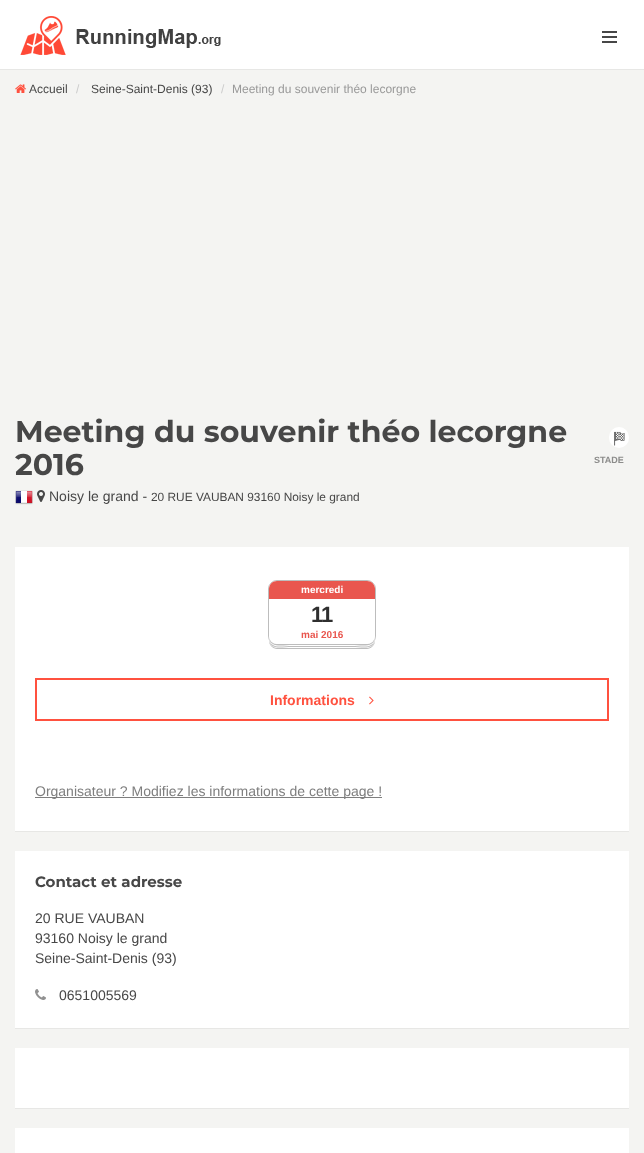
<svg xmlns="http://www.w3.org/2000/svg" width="644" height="1153">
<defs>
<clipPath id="clip1"><rect x="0" y="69" width="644" height="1"/></clipPath>
</defs>
<rect width="100%" height="100%" fill="#fff"/>
<rect y="69" width="644" height="1084" fill="#f4f4f2"/>
<g clip-path="url(#clip1)">
<rect y="1" width="644" height="69" fill="#0000000d" filter="blur(0.5px)"/>
</g>
<image x="20" y="16" width="201" height="39" href="media/1.png"/>
<rect x="602" y="31" width="15" height="2" fill="#474747"/>
<rect x="602" y="36" width="15" height="2" fill="#474747"/>
<rect x="602" y="41" width="15" height="2" fill="#474747"/>
<image x="15" y="84" width="11" height="9" href="media/2.png"/>
<text x="29" y="93" style="font-family:Liberation Sans;font-size:12px;fill:#474747">Accueil</text>
<text x="76" y="93" style="font-family:Liberation Sans;font-size:12px;fill:#ccc">/</text>
<text x="91" y="93" style="font-family:Liberation Sans;font-size:12px;fill:#474747">Seine-Saint-Denis (93)</text>
<text x="221" y="93" style="font-family:Liberation Sans;font-size:12px;fill:#ccc">/</text>
<text x="232" y="93" style="font-family:Liberation Sans;font-size:12px;fill:#999">Meeting du souvenir théo lecorgne</text>
<text x="15" y="442" style="font-family:Montserrat;font-size:30px;font-weight:bold;fill:#474747">Meeting du souvenir théo lecorgne</text>
<text x="15" y="475" style="font-family:Montserrat;font-size:30px;font-weight:bold;fill:#474747">2016</text>
<image x="15" y="490" width="18" height="15" href="media/3.png"/>
<image x="37" y="490" width="8" height="12" href="media/4.png"/>
<text x="49" y="501" style="font-family:Liberation Sans;font-size:14px;fill:#474747">Noisy le grand -</text>
<text x="151" y="501" style="font-family:Liberation Sans;font-size:11.9px;fill:#474747">20 RUE VAUBAN 93160 Noisy le grand</text>
<rect x="609" y="427" width="20" height="21" rx="10" fill="#fff"/>
<image x="614" y="431" width="11" height="15" href="media/5.png"/>
<text x="594" y="463" style="font-family:Liberation Sans;font-size:9px;font-weight:bold;fill:#8c8c8b">STADE</text>
<rect x="15" y="548" width="614" height="284" fill="#0000000d" filter="blur(0.5px)"/>
<rect x="15" y="547" width="614" height="284" fill="#fff"/>
<rect x="268.5" y="580.5" width="107" height="64" rx="8.5" fill="none" stroke="#bdbdbd"/>
<path d="M269 636v5c0 4 4 8 8 8h90c4 0 8-4 8-8v-5c0 4-4 8-8 8h-90c-4 0-8-4-8-8z" fill="#bdbdbd"/>
<path d="M269 636v4c0 4 4 8 8 8h90c4 0 8-4 8-8v-4c0 4-4 8-8 8h-90c-4 0-8-4-8-8z" fill="#fff"/>
<path d="M269 636c0 15 10 11 23 11h60c13 0 23 4 23-11c0 4-4 8-8 8h-90c-4 0-8-4-8-8z" fill="#bdbdbd"/>
<path d="M269 636c0 14 12 10 23 10h60c11 0 23 4 23-10c0 4-4 8-8 8h-90c-4 0-8-4-8-8z" fill="#fff"/>
<path d="M269 636c0 13 14 9 23 9h60c9 0 23 4 23-9c0 4-4 8-8 8h-90c-4 0-8-4-8-8z" fill="#bdbdbd"/>
<rect x="269" y="581" width="106" height="63" rx="8" fill="#fff"/>
<path d="M277 581h90c4.5 0 8 3.5 8 8v10h-106v-10c0-4.5 3.5-8 8-8z" fill="#e9564e"/>
<text x="301" y="593" style="font-family:Liberation Sans;font-size:10px;font-weight:bold;fill:#fff">mercredi</text>
<text x="311" y="622" style="font-family:Liberation Sans;font-size:22px;font-weight:bold;letter-spacing:-1px;fill:#2f2f2f">11</text>
<text x="301" y="638" style="font-family:Liberation Sans;font-size:10px;font-weight:bold;fill:#e9564e">mai 2016</text>
<rect x="36" y="679" width="572" height="41" fill="none" stroke="#ff513f" stroke-width="2"/>
<text x="270" y="705" style="font-family:Liberation Sans;font-size:14px;font-weight:bold;fill:#ff513f">Informations</text>
<image x="369" y="696" width="5" height="9" href="media/6.png"/>
<rect x="35" y="797" width="347" height="1" fill="#7e7e7e"/>
<text x="35" y="796" style="font-family:Liberation Sans;font-size:14px;fill:#7e7e7e">Organisateur ? Modifiez les informations de cette page !</text>
<rect x="15" y="852" width="614" height="177" fill="#0000000d" filter="blur(0.5px)"/>
<rect x="15" y="851" width="614" height="177" fill="#fff"/>
<text x="35" y="887" style="font-family:Montserrat;font-size:15px;font-weight:bold;fill:#474747">Contact et adresse</text>
<text x="35" y="923" style="font-family:Liberation Sans;font-size:14px;fill:#474747">20 RUE VAUBAN</text>
<text x="35" y="943" style="font-family:Liberation Sans;font-size:14px;fill:#474747">93160 Noisy le grand</text>
<text x="35" y="963" style="font-family:Liberation Sans;font-size:14px;fill:#474747">Seine-Saint-Denis (93)</text>
<image x="35" y="989" width="11" height="11" href="media/7.png"/>
<text x="59" y="1000" style="font-family:Liberation Sans;font-size:14px;fill:#474747">0651005569</text>
<rect x="15" y="1049" width="614" height="60" fill="#0000000d" filter="blur(0.5px)"/>
<rect x="15" y="1048" width="614" height="60" fill="#fff"/>
<rect x="15" y="1128" width="614" height="25" fill="#fff"/>
</svg>
